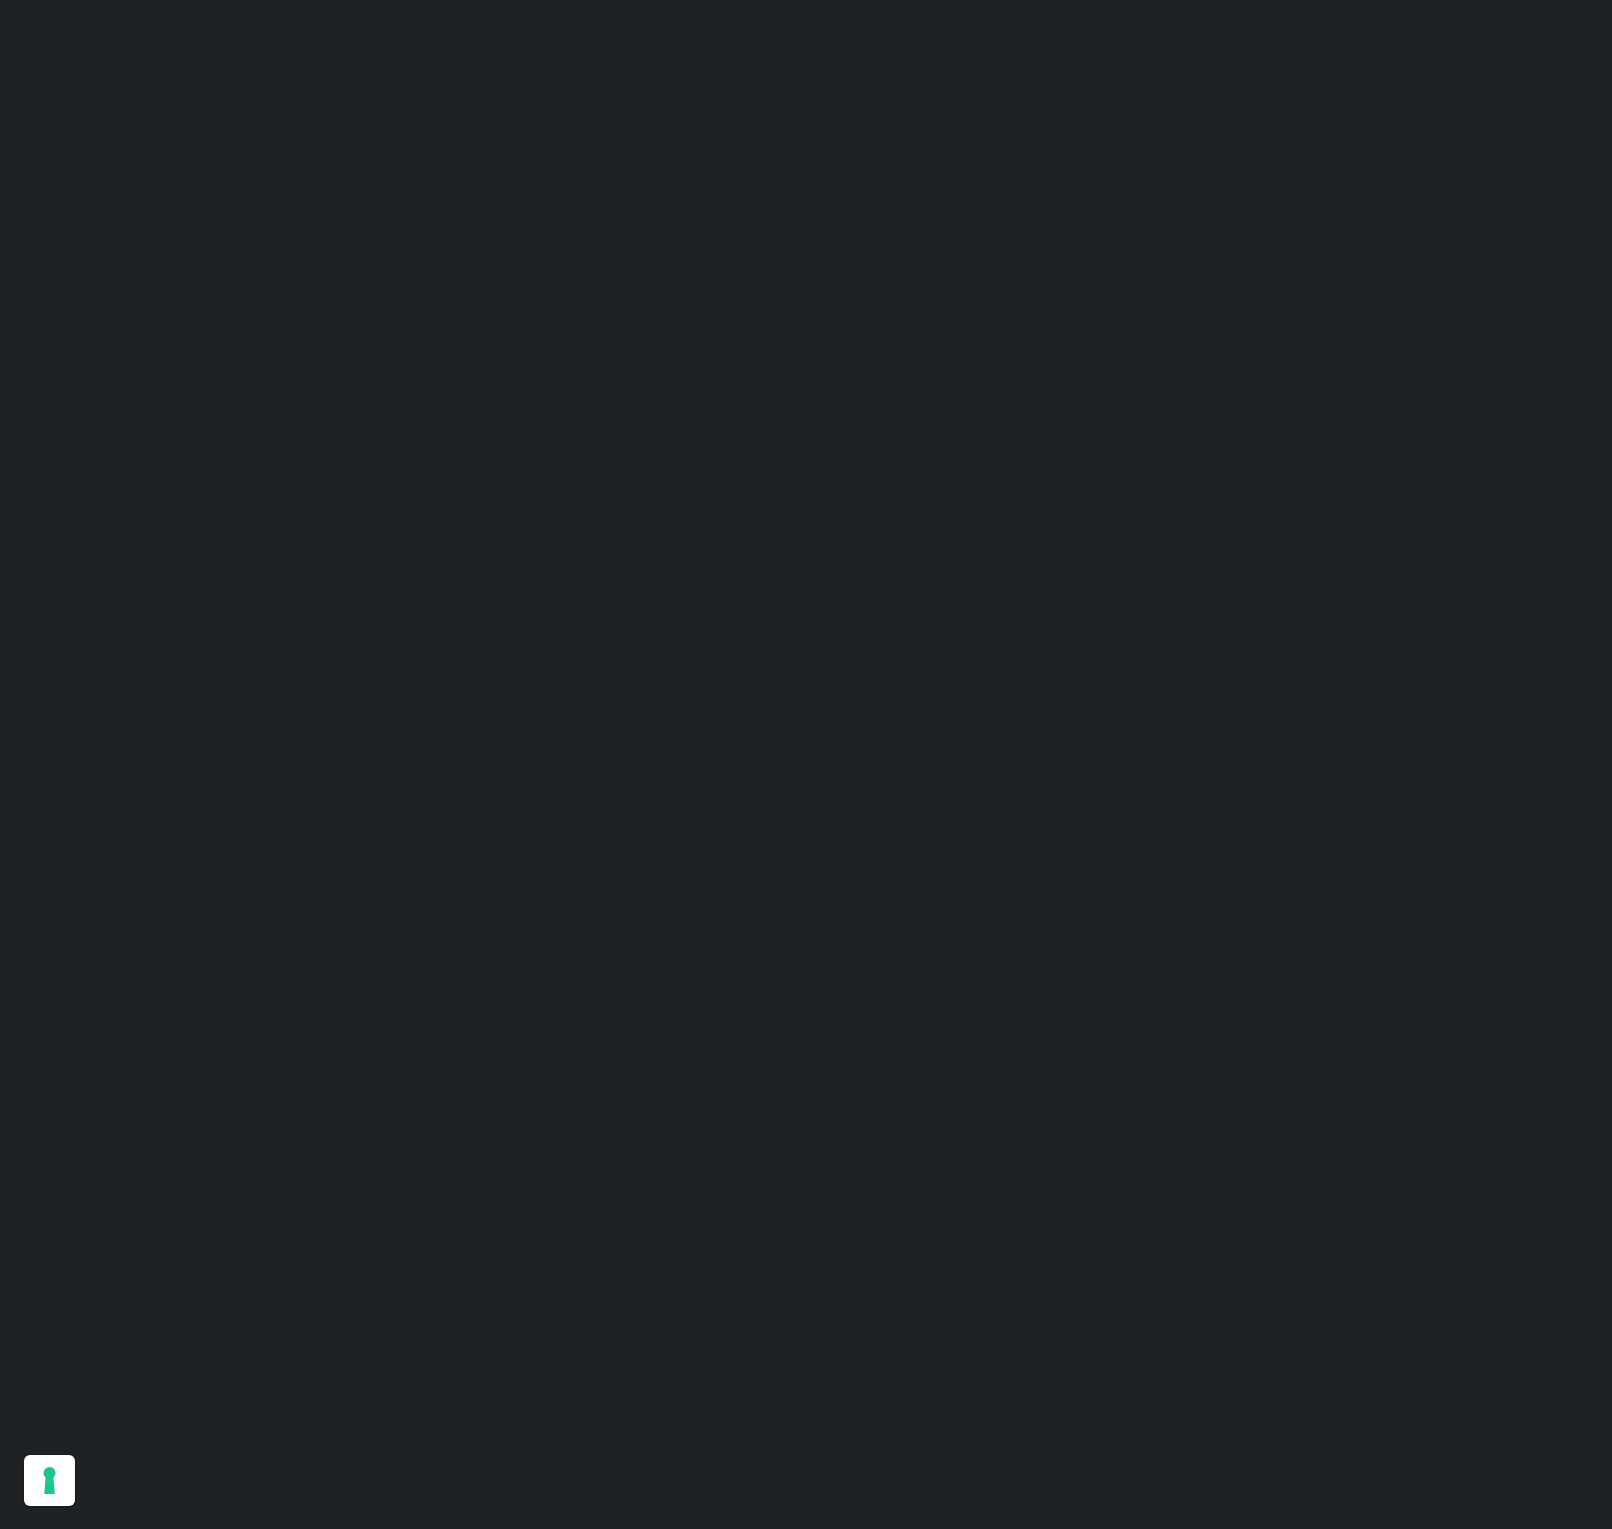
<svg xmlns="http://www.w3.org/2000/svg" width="1612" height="1529">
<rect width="100%" height="100%" fill="#1e2225"/>
<rect x="24" y="1455" width="52" height="52" rx="7" fill="none" stroke="#1a1d1f" stroke-width="2"/>
<rect x="24" y="1455" width="51" height="51" rx="6" fill="#fff"/>
<image x="43" y="1467" width="13" height="27" href="media/1.png"/>
</svg>
